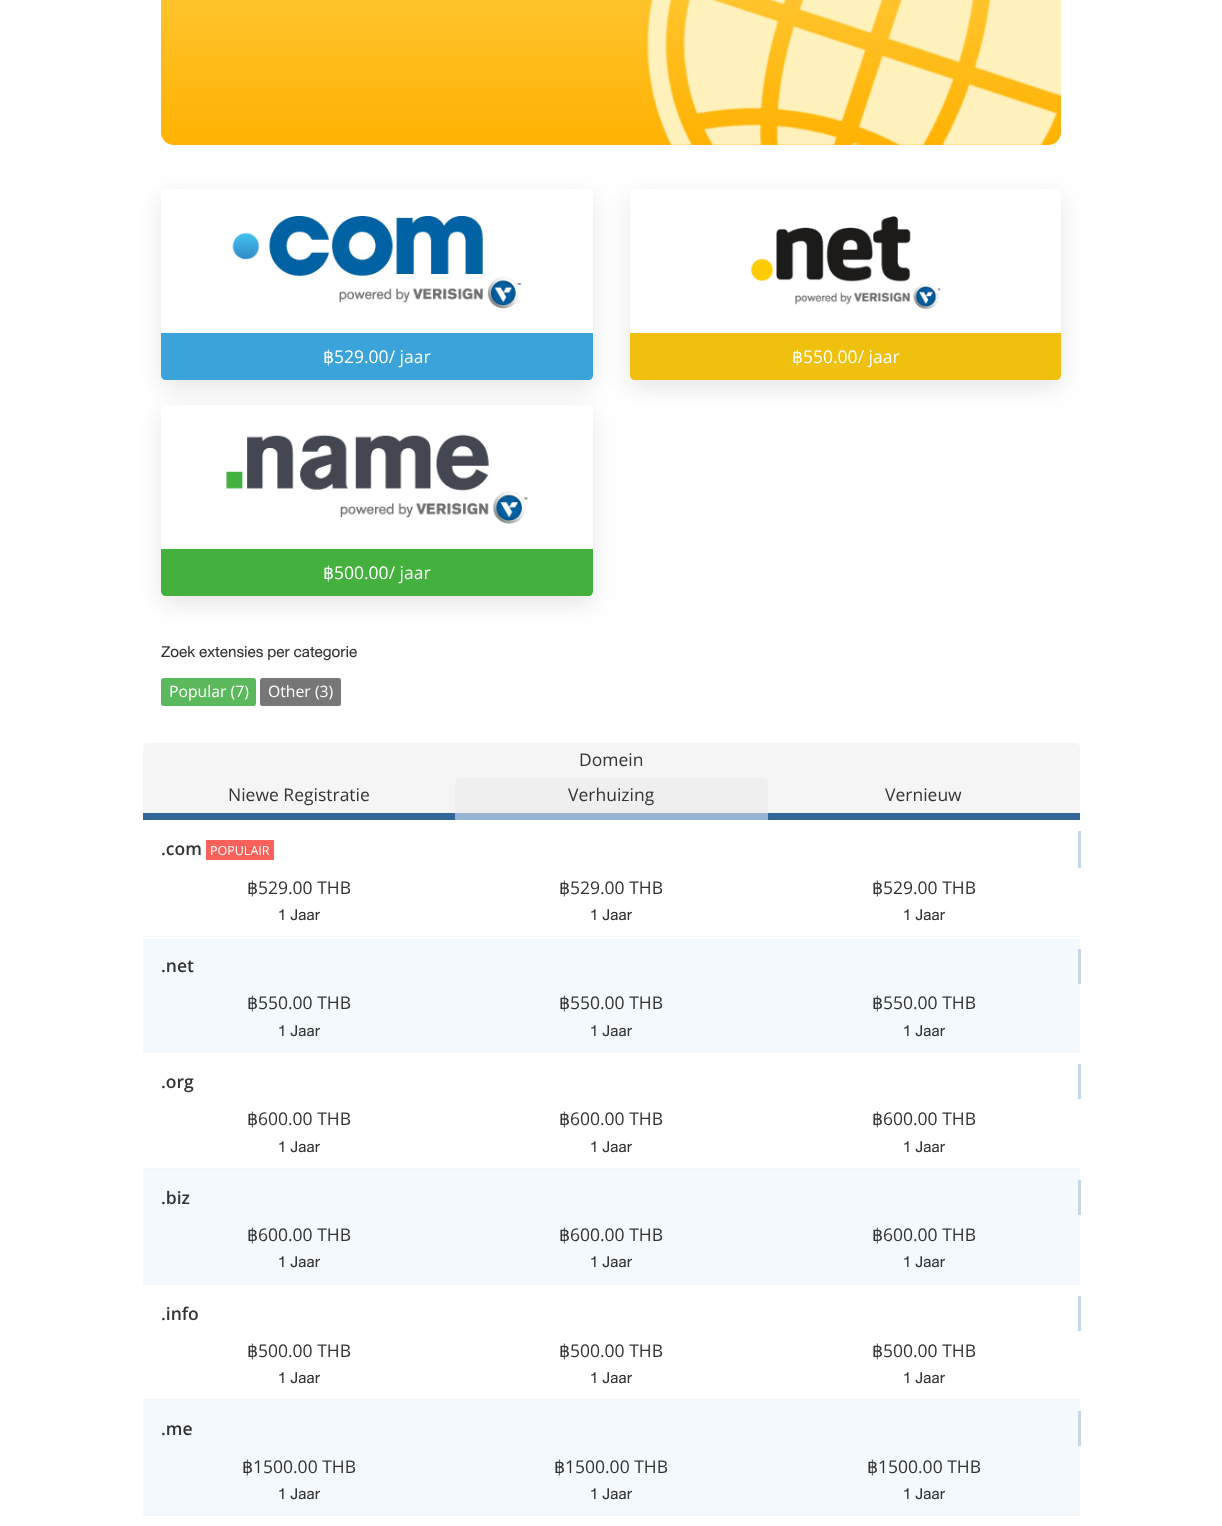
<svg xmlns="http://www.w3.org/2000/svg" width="1222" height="1526">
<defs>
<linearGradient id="g1" gradientUnits="userSpaceOnUse" x1="611" y1="-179" x2="611" y2="145"><stop offset="0" stop-color="#ffd960"/><stop offset="1" stop-color="#ffb201"/></linearGradient>
<clipPath id="clip1"><path d="M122 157h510v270h-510zm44 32h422c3 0 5 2 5 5v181c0 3-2 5-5 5h-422c-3 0-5-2-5-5v-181c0-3 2-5 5-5z" clip-rule="evenodd"/></clipPath>
<clipPath id="clip2"><path d="M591 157h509v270h-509zm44 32h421c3 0 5 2 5 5v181c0 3-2 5-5 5h-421c-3 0-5-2-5-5v-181c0-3 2-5 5-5z" clip-rule="evenodd"/></clipPath>
<clipPath id="clip3"><path d="M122 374h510v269h-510zm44 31h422c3 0 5 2 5 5v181c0 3-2 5-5 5h-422c-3 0-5-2-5-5v-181c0-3 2-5 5-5z" clip-rule="evenodd"/></clipPath>
</defs>
<rect width="100%" height="100%" fill="#fff"/>
<rect x="161" y="-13" width="900" height="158" rx="13" fill="url(#g1)"/>
<image x="646" y="0" width="416" height="145" href="media/1.png"/>
<g clip-path="url(#clip1)">
<rect x="161" y="196" width="432" height="192" rx="5" fill="#0000001a" filter="blur(12.5px)"/>
</g>
<image x="232" y="216" width="290" height="93" href="media/2.png"/>
<path d="M161 333h432v42c0 3-2 5-5 5h-422c-3 0-5-2-5-5z" fill="#3aa4da"/>
<text x="323" y="363" style="font-family:DejaVu Sans;font-size:17.5px;fill:#fff">฿</text>
<text x="334" y="363" style="font-family:Open Sans;font-size:17.5px;fill:#fff">529.00/ jaar</text>
<g clip-path="url(#clip2)">
<rect x="630" y="196" width="431" height="192" rx="5" fill="#0000001a" filter="blur(12.5px)"/>
</g>
<image x="751" y="216" width="189" height="94" href="media/3.png"/>
<path d="M630 333h431v42c0 3-2 5-5 5h-421c-3 0-5-2-5-5z" fill="#efc00e"/>
<text x="792" y="363" style="font-family:DejaVu Sans;font-size:17.5px;fill:#fff">฿</text>
<text x="803" y="363" style="font-family:Open Sans;font-size:17.5px;fill:#fff">550.00/ jaar</text>
<g clip-path="url(#clip3)">
<rect x="161" y="413" width="432" height="191" rx="5" fill="#0000001a" filter="blur(12.5px)"/>
</g>
<image x="226" y="434" width="302" height="90" href="media/4.png"/>
<path d="M161 549h432v42c0 3-2 5-5 5h-422c-3 0-5-2-5-5z" fill="#44b03e"/>
<text x="323" y="579" style="font-family:DejaVu Sans;font-size:17.5px;fill:#fff">฿</text>
<text x="334" y="579" style="font-family:Open Sans;font-size:17.5px;fill:#fff">500.00/ jaar</text>
<text x="161" y="657" style="font-family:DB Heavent;font-size:22.5px;fill:#333">Zoek extensies per categorie</text>
<rect x="161" y="678" width="95" height="28" rx="2.5" fill="#5cb85c"/>
<text x="169" y="697" style="font-family:Open Sans;font-size:15.75px;fill:#fff">Popular (7)</text>
<rect x="260" y="678" width="81" height="28" rx="2.5" fill="#777"/>
<text x="268" y="697" style="font-family:Open Sans;font-size:15.75px;fill:#fff">Other (3)</text>
<path d="M148 743h927c3 0 5 2 5 5v30h-937v-30c0-3 2-5 5-5z" fill="#f5f5f5"/>
<text x="579" y="766" style="font-family:Open Sans;font-size:17.5px;fill:#333">Domein</text>
<rect x="143" y="778" width="937" height="35" fill="#f5f5f5"/>
<rect x="143" y="813" width="312" height="7" fill="#369"/>
<text x="228" y="801" style="font-family:Open Sans;font-size:17.5px;fill:#333">Niewe Registratie</text>
<path d="M460 778h303c3 0 5 2 5 5v37h-313v-37c0-3 2-5 5-5z" fill="#efefef"/>
<rect x="455" y="813" width="313" height="7" fill="#97b5d2"/>
<text x="568" y="801" style="font-family:Open Sans;font-size:17.5px;fill:#333">Verhuizing</text>
<rect x="768" y="813" width="312" height="7" fill="#369"/>
<text x="885" y="801" style="font-family:Open Sans;font-size:17.5px;fill:#333">Vernieuw</text>
<rect x="143" y="936" width="937" height="1" fill="#f5f5f5"/>
<rect x="1078" y="831" width="3" height="37" fill="#c7d7e6"/>
<text x="161" y="855" style="font-family:Open Sans;font-size:17.5px;font-weight:600;fill:#333">.com</text>
<rect x="206" y="840" width="68" height="20" fill="#f9615a"/>
<text x="210" y="855" style="font-family:Open Sans;font-size:12.5px;fill:#fff">POPULAIR</text>
<text x="247" y="894" style="font-family:DejaVu Sans;font-size:17.5px;fill:#333">฿</text>
<text x="258" y="894" style="font-family:Open Sans;font-size:17.5px;fill:#333">529.00 THB</text>
<text x="278" y="920" style="font-family:DB Heavent;font-size:22.5px;fill:#333">1 Jaar</text>
<text x="559" y="894" style="font-family:DejaVu Sans;font-size:17.5px;fill:#333">฿</text>
<text x="570" y="894" style="font-family:Open Sans;font-size:17.5px;fill:#333">529.00 THB</text>
<text x="590" y="920" style="font-family:DB Heavent;font-size:22.5px;fill:#333">1 Jaar</text>
<text x="872" y="894" style="font-family:DejaVu Sans;font-size:17.5px;fill:#333">฿</text>
<text x="883" y="894" style="font-family:Open Sans;font-size:17.5px;fill:#333">529.00 THB</text>
<text x="903" y="920" style="font-family:DB Heavent;font-size:22.5px;fill:#333">1 Jaar</text>
<rect x="143" y="938" width="937" height="115" fill="#f3f9fd"/>
<rect x="143" y="1051" width="937" height="1" fill="#f5f5f5"/>
<rect x="1078" y="949" width="3" height="35" fill="#c7d7e6"/>
<text x="161" y="972" style="font-family:Open Sans;font-size:17.5px;font-weight:600;fill:#333">.net</text>
<text x="247" y="1009" style="font-family:DejaVu Sans;font-size:17.5px;fill:#333">฿</text>
<text x="258" y="1009" style="font-family:Open Sans;font-size:17.5px;fill:#333">550.00 THB</text>
<text x="278" y="1036" style="font-family:DB Heavent;font-size:22.5px;fill:#333">1 Jaar</text>
<text x="559" y="1009" style="font-family:DejaVu Sans;font-size:17.5px;fill:#333">฿</text>
<text x="570" y="1009" style="font-family:Open Sans;font-size:17.5px;fill:#333">550.00 THB</text>
<text x="590" y="1036" style="font-family:DB Heavent;font-size:22.5px;fill:#333">1 Jaar</text>
<text x="872" y="1009" style="font-family:DejaVu Sans;font-size:17.5px;fill:#333">฿</text>
<text x="883" y="1009" style="font-family:Open Sans;font-size:17.5px;fill:#333">550.00 THB</text>
<text x="903" y="1036" style="font-family:DB Heavent;font-size:22.5px;fill:#333">1 Jaar</text>
<rect x="143" y="1168" width="937" height="1" fill="#f5f5f5"/>
<rect x="1078" y="1064" width="3" height="35" fill="#c7d7e6"/>
<text x="161" y="1088" style="font-family:Open Sans;font-size:17.5px;font-weight:600;fill:#333">.org</text>
<text x="247" y="1125" style="font-family:DejaVu Sans;font-size:17.5px;fill:#333">฿</text>
<text x="258" y="1125" style="font-family:Open Sans;font-size:17.5px;fill:#333">600.00 THB</text>
<text x="278" y="1152" style="font-family:DB Heavent;font-size:22.5px;fill:#333">1 Jaar</text>
<text x="559" y="1125" style="font-family:DejaVu Sans;font-size:17.5px;fill:#333">฿</text>
<text x="570" y="1125" style="font-family:Open Sans;font-size:17.5px;fill:#333">600.00 THB</text>
<text x="590" y="1152" style="font-family:DB Heavent;font-size:22.5px;fill:#333">1 Jaar</text>
<text x="872" y="1125" style="font-family:DejaVu Sans;font-size:17.5px;fill:#333">฿</text>
<text x="883" y="1125" style="font-family:Open Sans;font-size:17.5px;fill:#333">600.00 THB</text>
<text x="903" y="1152" style="font-family:DB Heavent;font-size:22.5px;fill:#333">1 Jaar</text>
<rect x="143" y="1169" width="937" height="115" fill="#f3f9fd"/>
<rect x="143" y="1284" width="937" height="1" fill="#f5f5f5"/>
<rect x="1078" y="1180" width="3" height="35" fill="#c7d7e6"/>
<text x="161" y="1204" style="font-family:Open Sans;font-size:17.5px;font-weight:600;fill:#333">.biz</text>
<text x="247" y="1241" style="font-family:DejaVu Sans;font-size:17.5px;fill:#333">฿</text>
<text x="258" y="1241" style="font-family:Open Sans;font-size:17.5px;fill:#333">600.00 THB</text>
<text x="278" y="1267" style="font-family:DB Heavent;font-size:22.5px;fill:#333">1 Jaar</text>
<text x="559" y="1241" style="font-family:DejaVu Sans;font-size:17.5px;fill:#333">฿</text>
<text x="570" y="1241" style="font-family:Open Sans;font-size:17.5px;fill:#333">600.00 THB</text>
<text x="590" y="1267" style="font-family:DB Heavent;font-size:22.5px;fill:#333">1 Jaar</text>
<text x="872" y="1241" style="font-family:DejaVu Sans;font-size:17.5px;fill:#333">฿</text>
<text x="883" y="1241" style="font-family:Open Sans;font-size:17.5px;fill:#333">600.00 THB</text>
<text x="903" y="1267" style="font-family:DB Heavent;font-size:22.5px;fill:#333">1 Jaar</text>
<rect x="143" y="1399" width="937" height="1" fill="#f5f5f5"/>
<rect x="1078" y="1296" width="3" height="35" fill="#c7d7e6"/>
<text x="161" y="1320" style="font-family:Open Sans;font-size:17.5px;font-weight:600;fill:#333">.info</text>
<text x="247" y="1357" style="font-family:DejaVu Sans;font-size:17.5px;fill:#333">฿</text>
<text x="258" y="1357" style="font-family:Open Sans;font-size:17.5px;fill:#333">500.00 THB</text>
<text x="278" y="1383" style="font-family:DB Heavent;font-size:22.5px;fill:#333">1 Jaar</text>
<text x="559" y="1357" style="font-family:DejaVu Sans;font-size:17.5px;fill:#333">฿</text>
<text x="570" y="1357" style="font-family:Open Sans;font-size:17.5px;fill:#333">500.00 THB</text>
<text x="590" y="1383" style="font-family:DB Heavent;font-size:22.5px;fill:#333">1 Jaar</text>
<text x="872" y="1357" style="font-family:DejaVu Sans;font-size:17.5px;fill:#333">฿</text>
<text x="883" y="1357" style="font-family:Open Sans;font-size:17.5px;fill:#333">500.00 THB</text>
<text x="903" y="1383" style="font-family:DB Heavent;font-size:22.5px;fill:#333">1 Jaar</text>
<rect x="143" y="1400" width="937" height="115" fill="#f3f9fd"/>
<rect x="143" y="1515" width="937" height="1" fill="#f5f5f5"/>
<rect x="1078" y="1411" width="3" height="35" fill="#c7d7e6"/>
<text x="161" y="1435" style="font-family:Open Sans;font-size:17.5px;font-weight:600;fill:#333">.me</text>
<text x="242" y="1473" style="font-family:DejaVu Sans;font-size:17.5px;fill:#333">฿</text>
<text x="253" y="1473" style="font-family:Open Sans;font-size:17.5px;fill:#333">1500.00 THB</text>
<text x="278" y="1499" style="font-family:DB Heavent;font-size:22.5px;fill:#333">1 Jaar</text>
<text x="554" y="1473" style="font-family:DejaVu Sans;font-size:17.5px;fill:#333">฿</text>
<text x="565" y="1473" style="font-family:Open Sans;font-size:17.5px;fill:#333">1500.00 THB</text>
<text x="590" y="1499" style="font-family:DB Heavent;font-size:22.5px;fill:#333">1 Jaar</text>
<text x="867" y="1473" style="font-family:DejaVu Sans;font-size:17.5px;fill:#333">฿</text>
<text x="878" y="1473" style="font-family:Open Sans;font-size:17.5px;fill:#333">1500.00 THB</text>
<text x="903" y="1499" style="font-family:DB Heavent;font-size:22.5px;fill:#333">1 Jaar</text>
</svg>
